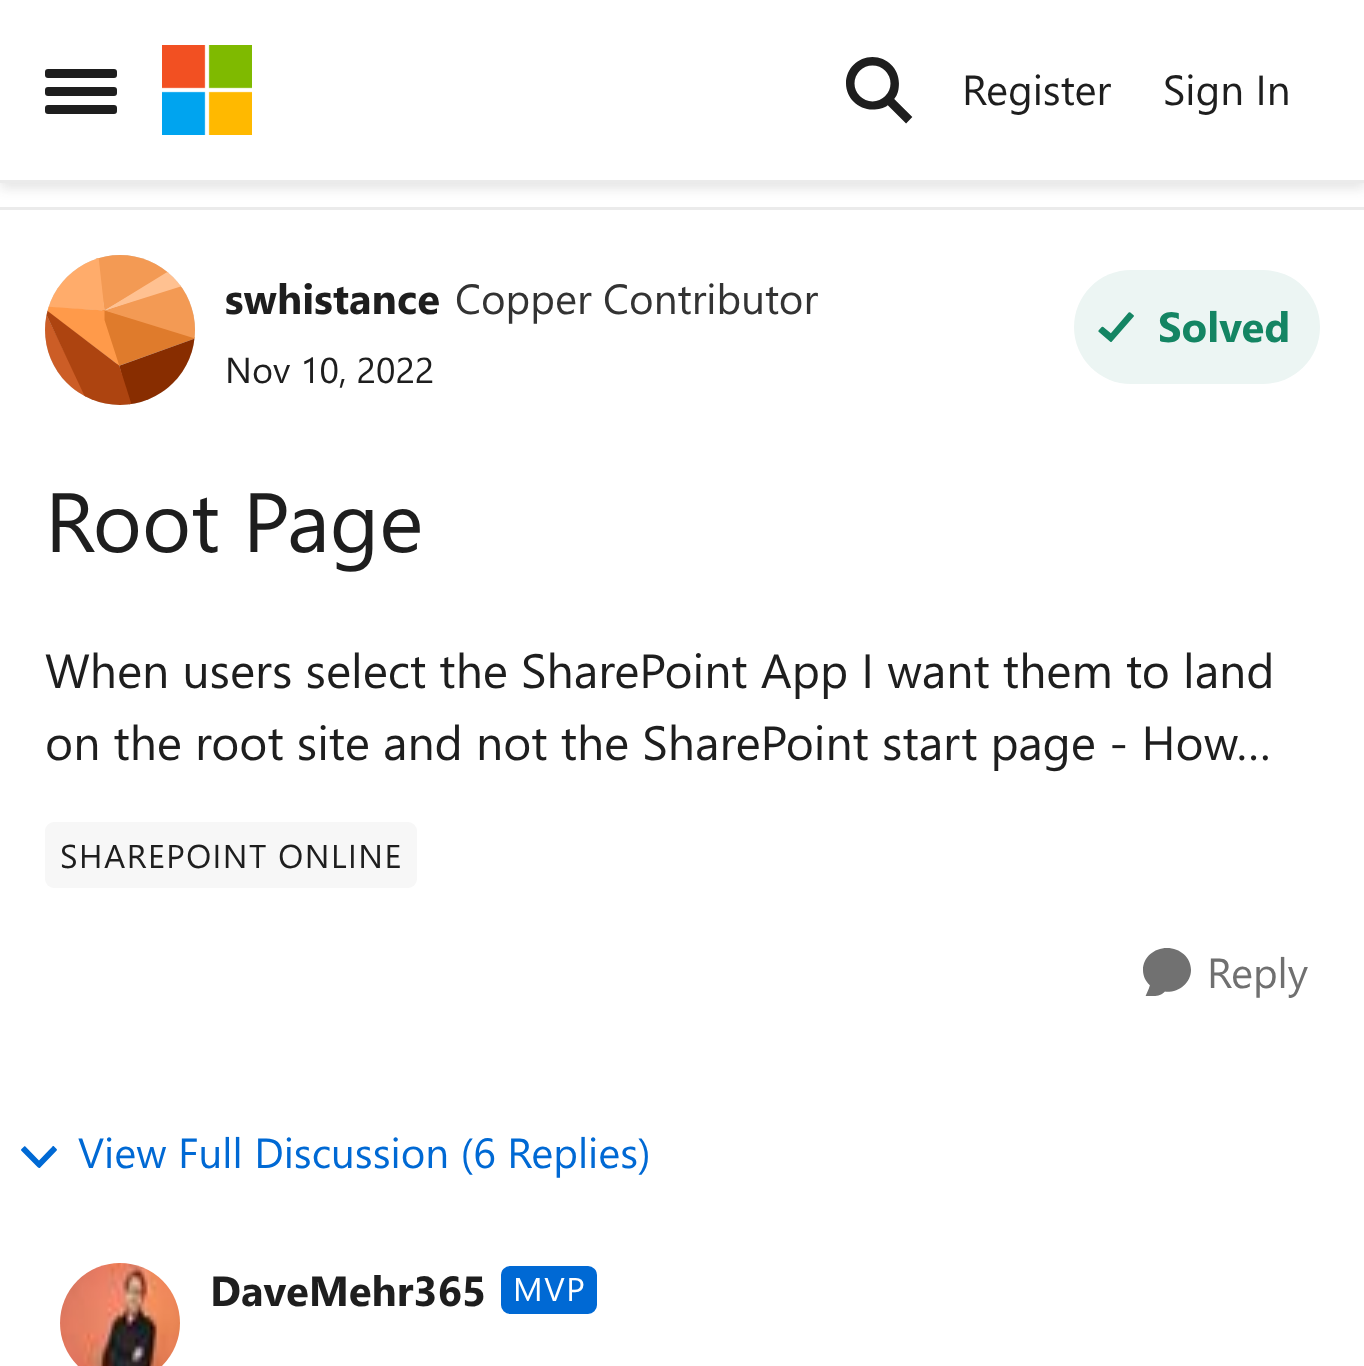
<svg xmlns="http://www.w3.org/2000/svg" width="1364" height="1366">
<rect width="100%" height="100%" fill="#fff"/>
<rect y="207" width="1364" height="3" fill="#ebebeb"/>
<rect y="6" width="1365" height="183" fill="#3333331f" filter="blur(6px)"/>
<rect width="1364" height="180" fill="#fff"/>
<rect y="180" width="1364" height="3" fill="#ebebeb"/>
<rect x="45" y="69" width="72" height="9" rx="3" fill="#1e1e1e"/>
<rect x="45" y="87" width="72" height="9" rx="3" fill="#1e1e1e"/>
<rect x="45" y="105" width="72" height="9" rx="3" fill="#1e1e1e"/>
<image x="162" y="45" width="90" height="90" href="media/1.png"/>
<image x="846" y="57" width="67" height="67" href="media/2.png"/>
<text x="962" y="105" style="font-family:Segoe UI;font-size:42px;fill:#1e1e1e">Register</text>
<text x="1163" y="105" style="font-family:Segoe UI;font-size:42px;fill:#1e1e1e">Sign In</text>
<circle cx="120" cy="330" r="75" fill="#d9d9d9"/>
<image x="45" y="255" width="150" height="150" href="media/3.png"/>
<text x="225" y="314" style="font-family:Segoe UI;font-size:42px;font-weight:bold;fill:#1e1e1e">swhistance</text>
<text x="455" y="314" style="font-family:Segoe UI;font-size:42px;fill:#333">Copper Contributor</text>
<text x="225" y="383" style="font-family:Segoe UI;font-size:36px;fill:#1e1e1e">Nov 10, 2022</text>
<rect x="1074" y="270" width="246" height="114" rx="57" fill="#ecf5f3"/>
<image x="1098" y="312" width="36" height="30" href="media/4.png"/>
<text x="1158" y="342" style="font-family:Segoe UI;font-size:42px;font-weight:bold;fill:#148563">Solved</text>
<text x="45" y="552" style="font-family:Segoe UI;font-size:84px;fill:#1e1e1e">Root Page</text>
<text x="45" y="688" style="font-family:Segoe UI;font-size:48px;fill:#1e1e1e">When users select the SharePoint App I want them to land</text>
<text x="45" y="760" style="font-family:Segoe UI;font-size:48px;fill:#1e1e1e">on the root site and not the SharePoint start page - How…</text>
<rect x="45" y="822" width="372" height="66" rx="9" fill="#f7f7f7"/>
<text x="60" y="868" style="font-family:Segoe UI;font-size:33px;letter-spacing:1.5px;fill:#1e1e1e">SHAREPOINT ONLINE</text>
<image x="1143" y="948" width="48" height="48" href="media/5.png"/>
<text x="1207" y="988" style="font-family:Segoe UI;font-size:42px;fill:#707070">Reply</text>
<image x="21" y="1146" width="36" height="22" href="media/6.png"/>
<text x="78" y="1168" style="font-family:Segoe UI;font-size:42px;fill:#0069d4">View Full Discussion (6 Replies)</text>
<image x="60" y="1263" width="120" height="103" href="media/7.png"/>
<text x="210" y="1306" style="font-family:Segoe UI;font-size:42px;font-weight:bold;fill:#1e1e1e">DaveMehr365</text>
<rect x="502.5" y="1267.5" width="93" height="45" rx="7.5" fill="#0069d4" stroke="#0069d4" stroke-width="3"/>
<text x="513" y="1301" style="font-family:Segoe UI;font-size:33px;letter-spacing:1.5px;fill:#fff">MVP</text>
</svg>
